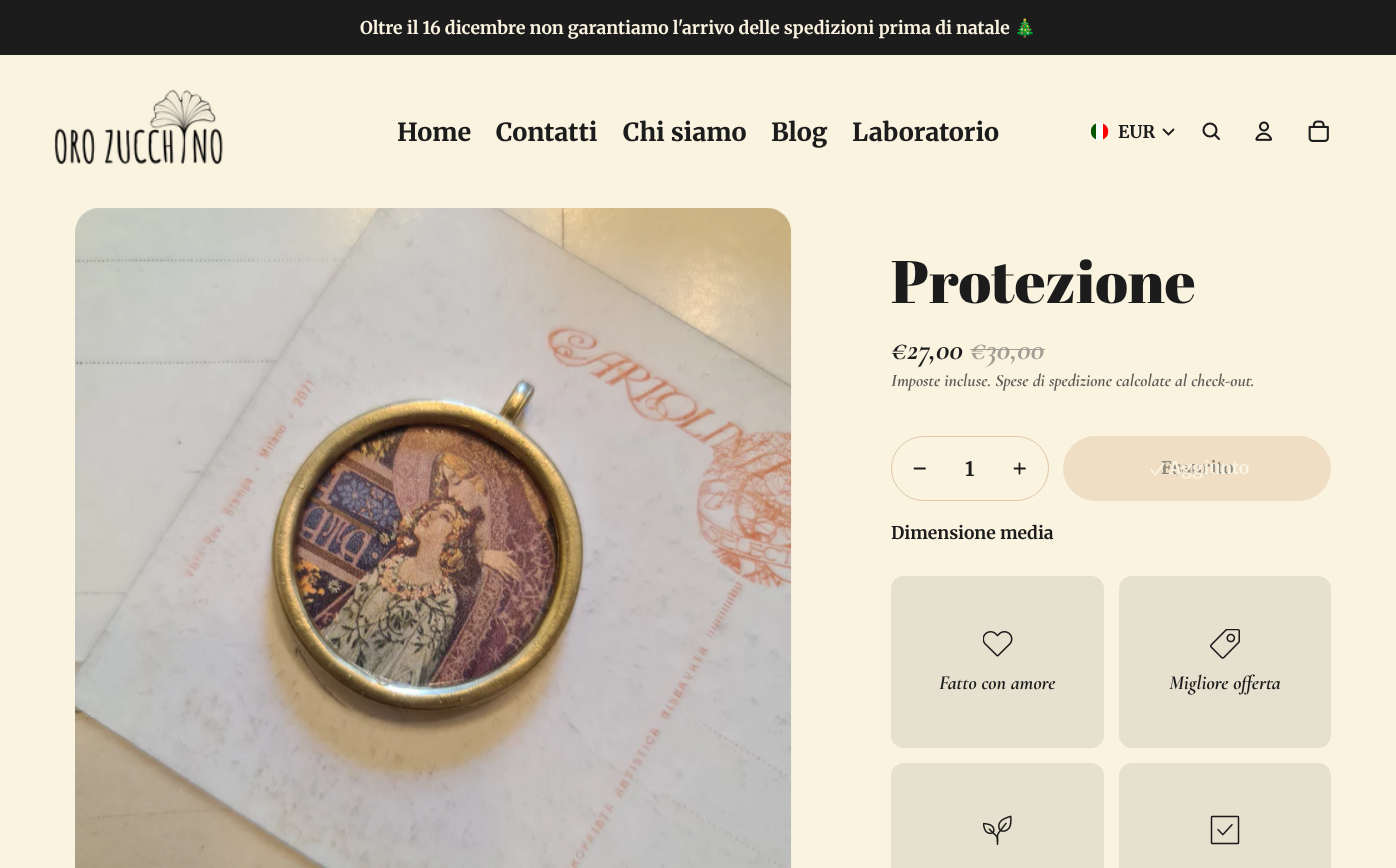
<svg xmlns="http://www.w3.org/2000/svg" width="1396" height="868">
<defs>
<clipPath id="clip1"><rect x="1091" y="123" width="18" height="17"/></clipPath>
</defs>
<rect width="100%" height="100%" fill="#1c1c1c"/>
<text x="360" y="34" style="font-family:Merriweather;font-size:17.5px;font-weight:bold;fill:#faf3e0">Oltre il 16 dicembre non garantiamo l'arrivo delle spedizioni prima di natale</text>
<text x="1014" y="34" style="font-family:Noto Color Emoji;font-size:17.5px;fill:#faf3e0">🎄</text>
<rect y="55" width="1396" height="813" fill="#faf3e0"/>
<image x="54" y="89" width="169" height="76" href="media/1.png"/>
<text x="397" y="141" style="font-family:Merriweather;font-size:25px;font-weight:800;fill:#1c1c1c">Home</text>
<text x="496" y="141" style="font-family:Merriweather;font-size:25px;font-weight:800;fill:#1c1c1c">Contatti</text>
<text x="623" y="141" style="font-family:Merriweather;font-size:25px;font-weight:800;fill:#1c1c1c">Chi siamo</text>
<text x="771" y="141" style="font-family:Merriweather;font-size:25px;font-weight:800;fill:#1c1c1c">Blog</text>
<text x="852" y="141" style="font-family:Merriweather;font-size:25px;font-weight:800;fill:#1c1c1c">Laboratorio</text>
<path d="M1097.5 140c-4.5-1-7.5-5.5-6.5-10c1.5-11 19-8.5 17 3c-.5 2.5-2 4.5-4 6c-2 1-4 1-6.5 1z" fill="#fff"/>
<g clip-path="url(#clip1)">
<path d="M1096 123.5v16c-7-3-7-13 0-16z" fill="#005700"/>
</g>
<path d="M1103 123.5c7 3 7 13 0 16z" fill="#fc0000"/>
<text x="1118" y="138" style="font-family:Merriweather;font-size:17.5px;font-weight:bold;fill:#1c1c1c">EUR</text>
<path d="M1173.5 129.5l-5 5l-5-5" fill="none" stroke="#1c1c1c" stroke-width="1.8" stroke-linecap="round" stroke-linejoin="round"/>
<circle cx="1210" cy="130" r="6.5" fill="none" stroke="#1c1c1c" stroke-width="2.1"/>
<path d="M1214.5 134.5l4.5 4.5" fill="none" stroke="#1c1c1c" stroke-width="2.1" stroke-linecap="round" stroke-linejoin="round"/>
<image x="1255" y="121" width="18" height="20" href="media/2.png"/>
<image x="1308" y="120" width="21" height="22" href="media/3.png"/>
<image x="75" y="208" width="717" height="660" href="media/4.png"/>
<text x="891" y="303" style="font-family:Abril Fatface;font-size:60px;fill:#1c1c1c">Protezione</text>
<text x="891" y="359" style="font-family:Cormorant;font-size:30px;font-weight:bold;font-style:italic;fill:#1c1c1c">€27,00</text>
<text x="970" y="359" style="font-family:Cormorant;font-size:30px;font-weight:bold;font-style:italic;fill:#a19d92">€30,00</text>
<rect x="970" y="349" width="75" height="1" fill="#a19d92"/>
<text x="891" y="386" style="font-family:Cormorant;font-size:17.5px;font-weight:bold;font-style:italic;fill:#5f5d57">Imposte incluse. Spese di spedizione calcolate al check-out.</text>
<rect x="891.5" y="436.5" width="157" height="64" rx="32" fill="none" stroke="#e0c6a8"/>
<path d="M914.5 468.5h10.5" fill="none" stroke="#1c1c1c" stroke-width="1.8" stroke-linecap="round"/>
<text x="965" y="476" style="font-family:Merriweather;font-size:20px;font-weight:bold;fill:#1c1c1c">1</text>
<path d="M1014.5 468.5h10.5m-5.5-5v10" fill="none" stroke="#1c1c1c" stroke-width="1.8" stroke-linecap="round"/>
<rect x="1063" y="436" width="268" height="65" rx="32.5" fill="#efddc4"/>
<text x="1161" y="474" style="font-family:Merriweather;font-size:17.5px;font-weight:bold;fill:#8b887e">Esaurito</text>
<path d="M1151 469.5l3 4c1.5 2 1 1.5 3-1l7-9" fill="none" stroke="#faf3e0" stroke-width="1.9" stroke-linecap="round" stroke-linejoin="round"/>
<text x="1169" y="474" style="font-family:Merriweather;font-size:17.5px;font-weight:bold;fill:#faf3e0">Aggiunto</text>
<text x="891" y="539" style="font-family:Merriweather;font-size:17.5px;font-weight:bold;fill:#1c1c1c">Dimensione media</text>
<rect x="891" y="576" width="213" height="172" rx="13" fill="#e6e0ce"/>
<image x="983" y="631" width="30" height="26" href="media/5.png"/>
<text x="939" y="689" style="font-family:Cormorant;font-size:20px;font-weight:bold;font-style:italic;fill:#1c1c1c">Fatto con amore</text>
<rect x="1119" y="576" width="212" height="172" rx="13" fill="#e6e0ce"/>
<image x="1210" y="629" width="30" height="30" href="media/6.png"/>
<text x="1169" y="689" style="font-family:Cormorant;font-size:20px;font-weight:bold;font-style:italic;fill:#1c1c1c">Migliore offerta</text>
<rect x="891" y="763" width="213" height="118" rx="13" fill="#e6e0ce"/>
<image x="983" y="815" width="29" height="30" href="media/7.png"/>
<rect x="1119" y="763" width="212" height="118" rx="13" fill="#e6e0ce"/>
<image x="1210" y="815" width="30" height="30" href="media/8.png"/>
</svg>
